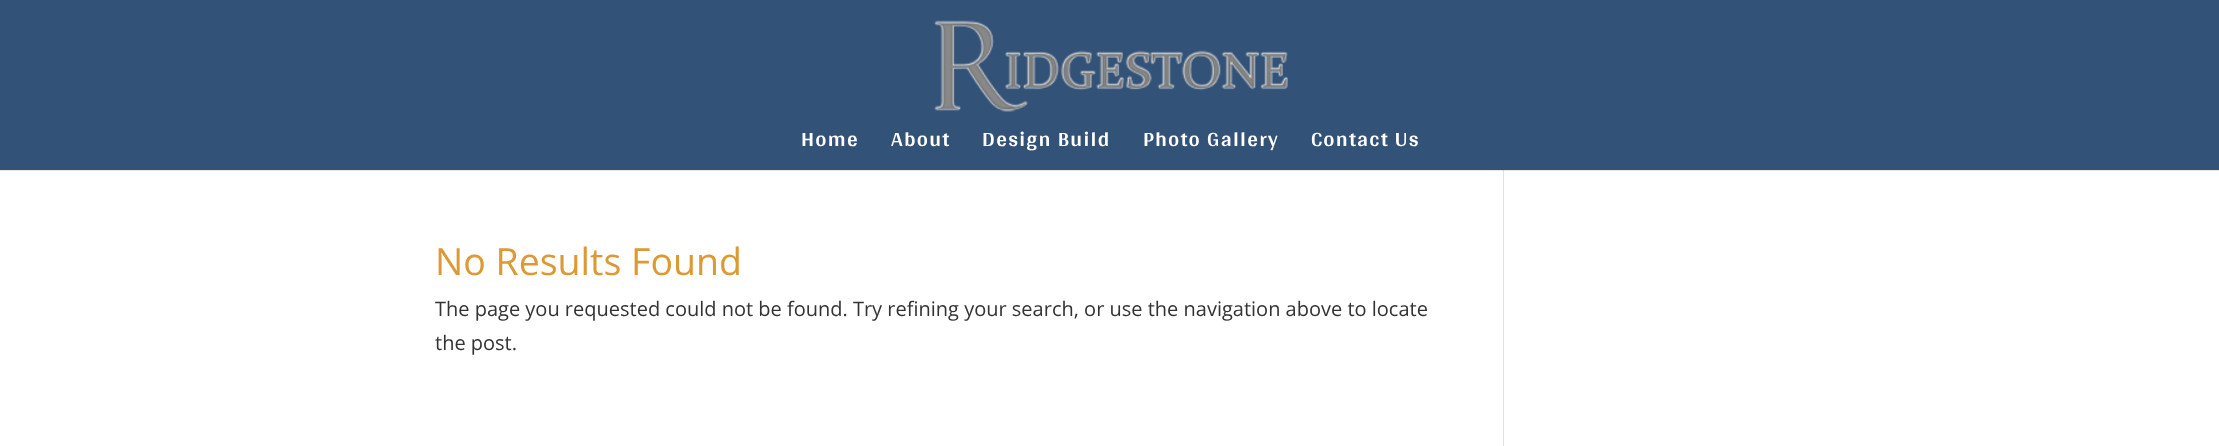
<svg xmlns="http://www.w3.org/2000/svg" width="2219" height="446">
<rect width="100%" height="100%" fill="#fff"/>
<rect y="170" width="2219" height="1" fill="#e6e6e6"/>
<rect width="2219" height="170" fill="#335277"/>
<image x="934" y="20" width="354" height="92" href="media/1.png"/>
<text x="801" y="146" style="font-family:Arya;font-size:21.25px;font-weight:bold;letter-spacing:1.25px;fill:#fff">Home</text>
<text x="891" y="146" style="font-family:Arya;font-size:21.25px;font-weight:bold;letter-spacing:1.25px;fill:#fff">About</text>
<text x="982" y="146" style="font-family:Arya;font-size:21.25px;font-weight:bold;letter-spacing:1.25px;fill:#fff">Design Build</text>
<text x="1143" y="146" style="font-family:Arya;font-size:21.25px;font-weight:bold;letter-spacing:1.25px;fill:#fff">Photo Gallery</text>
<text x="1311" y="146" style="font-family:Arya;font-size:21.25px;font-weight:bold;letter-spacing:1.25px;fill:#fff">Contact Us</text>
<text x="435" y="275" style="font-family:Open Sans;font-size:37.5px;fill:#d93">No Results Found</text>
<text x="435" y="316" style="font-family:Open Sans;font-size:20px;fill:#333">The page you requested could not be found. Try refining your search, or use the navigation above to locate</text>
<text x="435" y="350" style="font-family:Open Sans;font-size:20px;fill:#333">the post.</text>
<rect x="1503" y="170" width="1" height="276" fill="#e2e2e2"/>
<rect x="1503" y="170" width="1" height="1" fill="#cbcbcb"/>
</svg>
